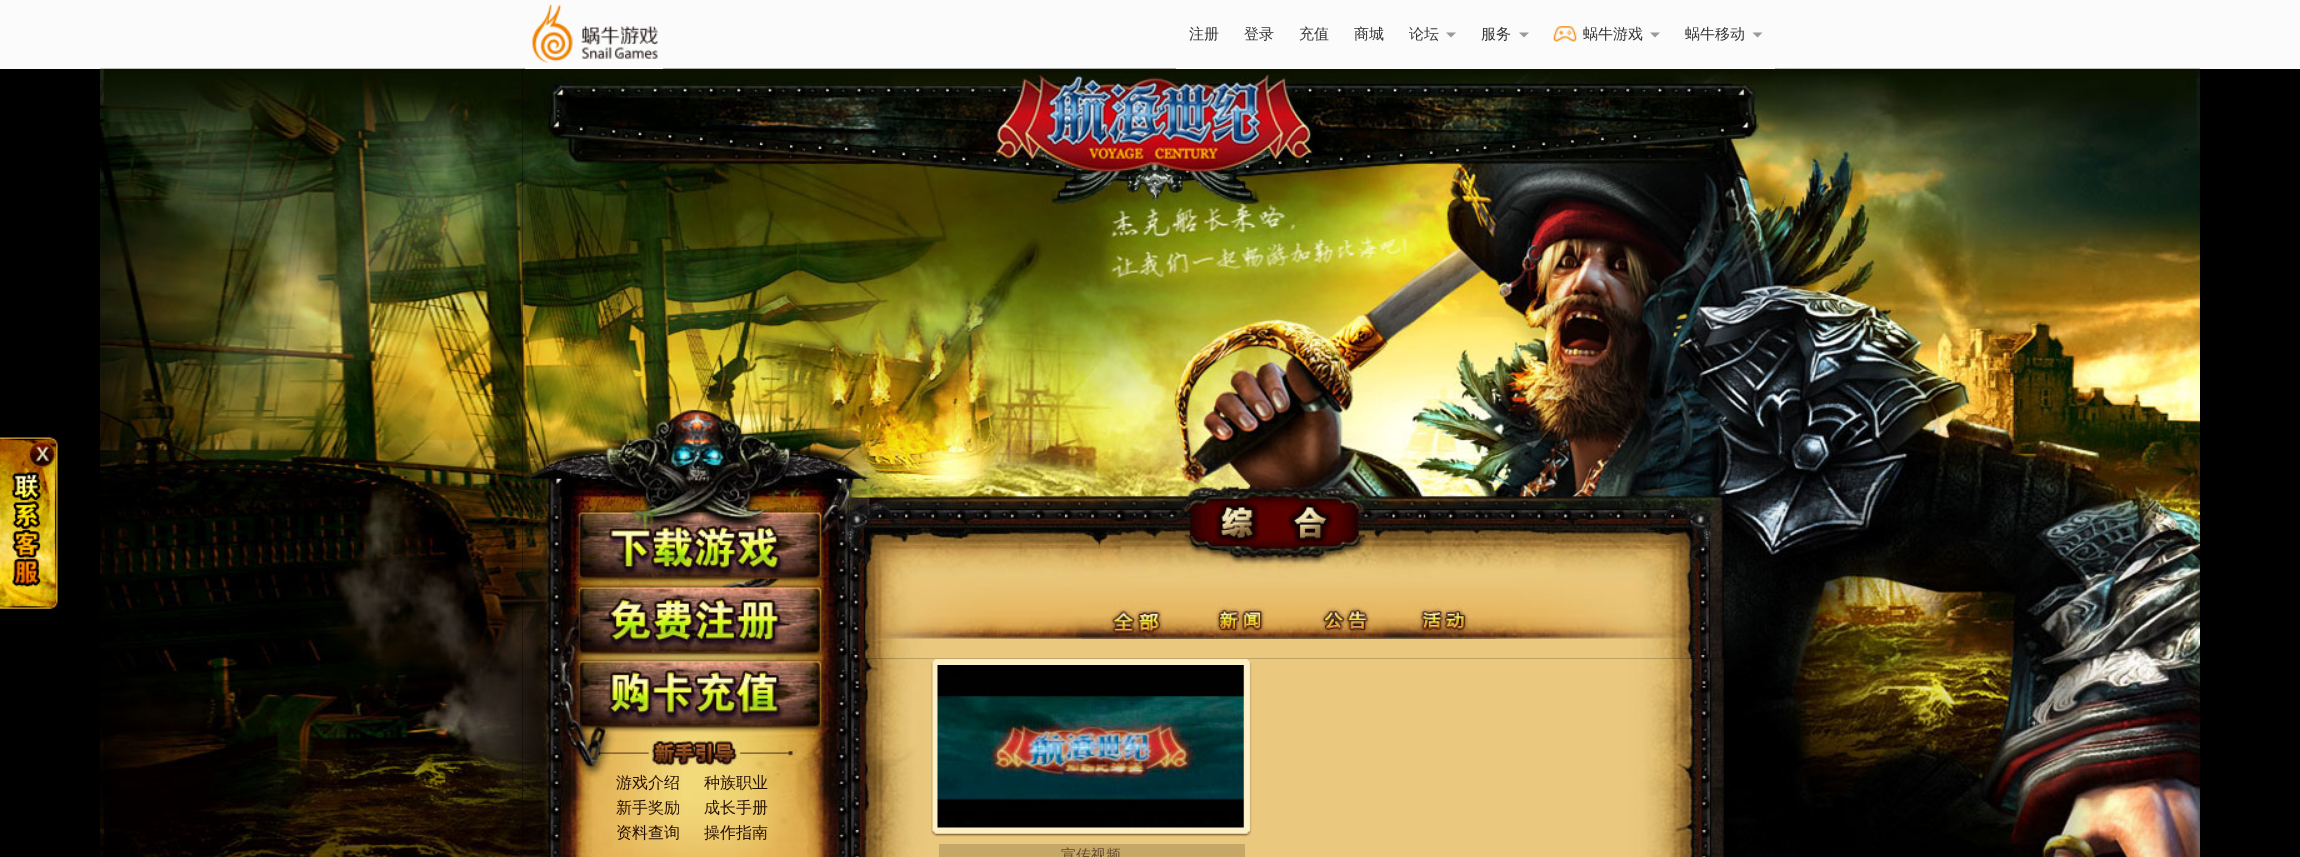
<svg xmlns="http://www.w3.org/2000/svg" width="2300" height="857">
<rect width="100%" height="100%" fill="#000"/>
<rect width="2300" height="69" fill="#fbfbfb"/>
<image x="100" y="68" width="2100" height="789" href="media/4.png"/>
<image x="522" y="68" width="1256" height="789" href="media/5.png"/>
<rect x="525" y="68" width="138" height="1" fill="#fbfbfb"/>
<image x="532" y="4" width="126" height="59" href="media/1.png"/>
<rect x="1176" y="68" width="599" height="1" fill="#fbfbfb"/>
<text x="1189" y="39" style="font-family:WenQuanYi Zen Hei;font-size:15px;font-weight:500;fill:#333">注册</text>
<text x="1244" y="39" style="font-family:WenQuanYi Zen Hei;font-size:15px;font-weight:500;fill:#333">登录</text>
<text x="1299" y="39" style="font-family:WenQuanYi Zen Hei;font-size:15px;font-weight:500;fill:#333">充值</text>
<text x="1354" y="39" style="font-family:WenQuanYi Zen Hei;font-size:15px;font-weight:500;fill:#333">商城</text>
<text x="1409" y="39" style="font-family:WenQuanYi Zen Hei;font-size:15px;font-weight:500;fill:#333">论坛</text>
<path d="M1446 32.5h10l-5 5z" fill="#999"/>
<text x="1481" y="39" style="font-family:WenQuanYi Zen Hei;font-size:15px;font-weight:500;fill:#333">服务</text>
<path d="M1519 32.5h10l-5 5z" fill="#999"/>
<image x="1553" y="26" width="24" height="16" href="media/2.png"/>
<text x="1583" y="39" style="font-family:WenQuanYi Zen Hei;font-size:15px;font-weight:500;fill:#333">蜗牛游戏</text>
<path d="M1650 32.5h10l-5 5z" fill="#999"/>
<text x="1685" y="39" style="font-family:WenQuanYi Zen Hei;font-size:15px;font-weight:500;fill:#333">蜗牛移动</text>
<path d="M1752.5 32.5h10l-5 5z" fill="#999"/>
<image x="0" y="437" width="58" height="172" href="media/3.png"/>
<text x="616" y="788" style="font-family:WenQuanYi Zen Hei;font-size:16px;font-weight:500;fill:#250d00">游戏介绍</text>
<text x="704" y="788" style="font-family:WenQuanYi Zen Hei;font-size:16px;font-weight:500;fill:#250d00">种族职业</text>
<text x="616" y="813" style="font-family:WenQuanYi Zen Hei;font-size:16px;font-weight:500;fill:#250d00">新手奖励</text>
<text x="704" y="813" style="font-family:WenQuanYi Zen Hei;font-size:16px;font-weight:500;fill:#250d00">成长手册</text>
<text x="616" y="838" style="font-family:WenQuanYi Zen Hei;font-size:16px;font-weight:500;fill:#250d00">资料查询</text>
<text x="704" y="838" style="font-family:WenQuanYi Zen Hei;font-size:16px;font-weight:500;fill:#250d00">操作指南</text>
<image x="1215" y="500" width="118" height="44" href="media/6.png"/>
<image x="1082" y="603" width="105" height="36" href="media/7.png"/>
<image x="1186" y="602" width="103" height="37" href="media/8.png"/>
<image x="1290" y="603" width="104" height="36" href="media/9.png"/>
<image x="1394" y="602" width="103" height="37" href="media/10.png"/>
<image x="849" y="658" width="875" height="199" href="media/11.png"/>
<image x="931" y="658" width="321" height="179" href="media/12.png"/>
<image x="937" y="665" width="307" height="163" href="media/13.png"/>
<rect x="939" y="844" width="306" height="13" fill="#c5a868"/>
<text x="1061" y="860" style="font-family:WenQuanYi Zen Hei;font-size:15px;font-weight:500;fill:#674c31">宣传视频</text>
</svg>
